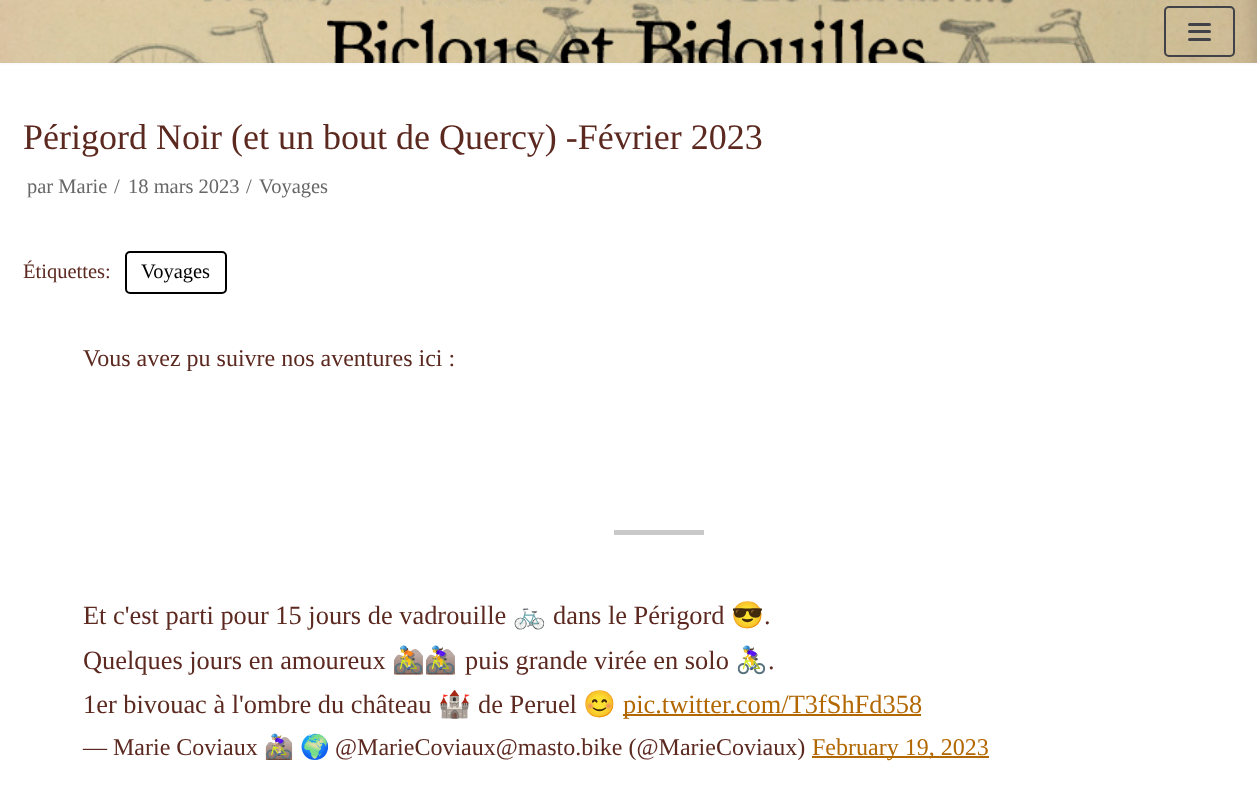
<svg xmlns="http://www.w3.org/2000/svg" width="1257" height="796">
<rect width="100%" height="100%" fill="#fff"/>
<rect y="-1" width="1257" height="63" fill="#0000001a" filter="blur(2px)"/>
<image x="0" y="0" width="1257" height="63" href="media/1.png"/>
<rect x="1165" y="7" width="69" height="49" rx="4" fill="none" stroke="#404248" stroke-width="2"/>
<rect x="1188" y="23" width="23" height="3" rx="1.5" fill="#404248"/>
<rect x="1188" y="30" width="23" height="3" rx="1.5" fill="#404248"/>
<rect x="1188" y="38" width="23" height="3" rx="1.5" fill="#404248"/>
<text x="23" y="149" style="font-family:Liberation Serif;font-size:36px;fill:#5c2920">Périgord Noir (et un bout de Quercy) -Février 2023</text>
<text x="27" y="193" style="font-family:Liberation Serif;font-size:20.5px;fill:#676767">par Marie</text>
<text x="114" y="193" style="font-family:Liberation Serif;font-size:20.5px;fill:#676767">/</text>
<text x="128" y="193" style="font-family:Liberation Serif;font-size:20.5px;fill:#676767">18 mars 2023</text>
<text x="246" y="193" style="font-family:Liberation Serif;font-size:20.5px;fill:#676767">/</text>
<text x="259" y="193" style="font-family:Liberation Serif;font-size:20.5px;fill:#676767">Voyages</text>
<text x="23" y="278" style="font-family:Liberation Serif;font-size:20.5px;fill:#5c2920">Étiquettes:</text>
<rect x="126" y="252" width="100" height="41" rx="4" fill="none" stroke="#000" stroke-width="2"/>
<text x="141" y="278" style="font-family:Liberation Serif;font-size:20.5px;fill:#000">Voyages</text>
<text x="83" y="366" style="font-family:Liberation Serif;font-size:24px;fill:#5c2920">Vous avez pu suivre nos aventures ici :</text>
<rect x="614" y="530" width="90" height="5" fill="#c9c9c9"/>
<text x="83" y="624" style="font-family:Liberation Serif;font-size:26.4px;fill:#5c2920">Et c'est parti pour 15 jours de vadrouille</text>
<text x="513" y="624" style="font-family:Noto Color Emoji;font-size:26.4px;fill:#5c2920">🚲</text>
<text x="553" y="624" style="font-family:Liberation Serif;font-size:26.4px;fill:#5c2920">dans le Périgord</text>
<text x="731" y="624" style="font-family:Noto Color Emoji;font-size:26.4px;fill:#5c2920">😎</text>
<text x="764" y="624" style="font-family:Liberation Serif;font-size:26.4px;fill:#5c2920">.</text>
<text x="83" y="669" style="font-family:Liberation Serif;font-size:26.4px;fill:#5c2920">Quelques jours en amoureux</text>
<text x="392" y="669" style="font-family:Noto Color Emoji;font-size:26.4px;fill:#5c2920">🚵🚵‍♀️</text>
<text x="465" y="669" style="font-family:Liberation Serif;font-size:26.4px;fill:#5c2920">puis grande virée en solo</text>
<text x="735" y="669" style="font-family:Noto Color Emoji;font-size:26.4px;fill:#5c2920">🚴‍♀️</text>
<text x="768" y="669" style="font-family:Liberation Serif;font-size:26.4px;fill:#5c2920">.</text>
<text x="83" y="713" style="font-family:Liberation Serif;font-size:26.4px;fill:#5c2920">1er bivouac à l'ombre du château</text>
<text x="438" y="713" style="font-family:Noto Color Emoji;font-size:26.4px;fill:#5c2920">🏰</text>
<text x="478" y="713" style="font-family:Liberation Serif;font-size:26.4px;fill:#5c2920">de Peruel</text>
<text x="583" y="713" style="font-family:Noto Color Emoji;font-size:26.4px;fill:#5c2920">😊</text>
<rect x="623" y="714" width="298" height="2" fill="#b26701"/>
<text x="623" y="713" style="font-family:Liberation Serif;font-size:26.4px;fill:#b26701">pic.twitter.com/T3fShFd358</text>
<text x="83" y="755" style="font-family:Liberation Serif;font-size:24px;fill:#5c2920">— Marie Coviaux</text>
<text x="264" y="755" style="font-family:Noto Color Emoji;font-size:24px;fill:#5c2920">🚵🏼‍♀️</text>
<text x="300" y="755" style="font-family:Noto Color Emoji;font-size:24px;fill:#5c2920">🌍</text>
<text x="335" y="755" style="font-family:Liberation Serif;font-size:24px;fill:#5c2920">@MarieCoviaux@masto.bike (@MarieCoviaux)</text>
<rect x="812" y="756" width="177" height="2" fill="#b26701"/>
<text x="812" y="755" style="font-family:Liberation Serif;font-size:24px;fill:#b26701">February 19, 2023</text>
</svg>
